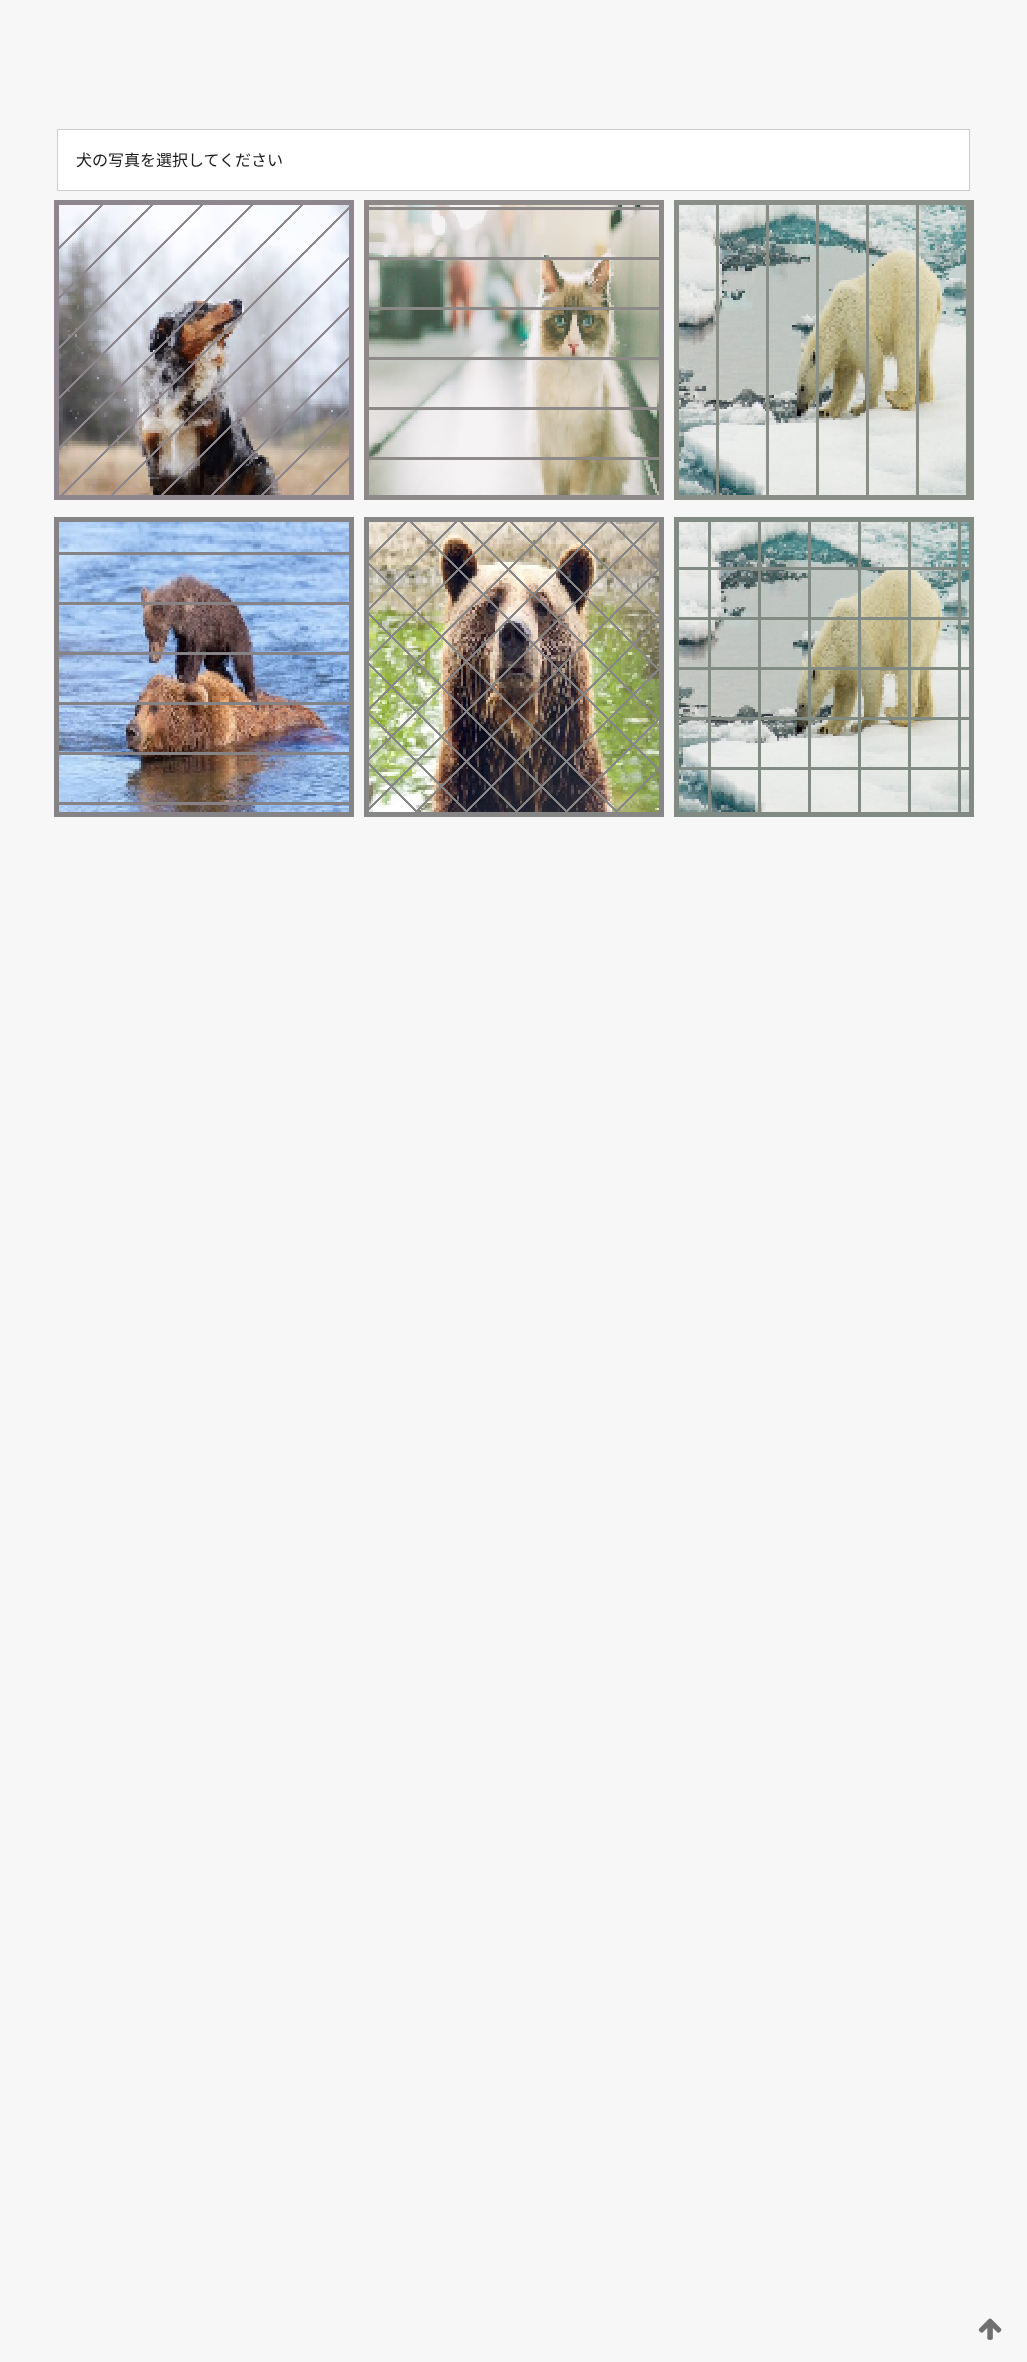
<svg xmlns="http://www.w3.org/2000/svg" width="1027" height="2362">
<rect width="100%" height="100%" fill="#f7f7f7"/>
<rect x="57.5" y="129.5" width="912" height="61" fill="#fff" stroke="#ccc"/>
<text x="76" y="166" style="font-family:Noto Sans SC;font-size:16px;font-weight:100;fill:#1a1a1a">犬の写真を選択してください</text>
<image x="54" y="200" width="300" height="300" href="media/1.png"/>
<image x="364" y="200" width="300" height="300" href="media/2.png"/>
<image x="674" y="200" width="300" height="300" href="media/3.png"/>
<image x="54" y="517" width="300" height="300" href="media/4.png"/>
<image x="364" y="517" width="300" height="300" href="media/5.png"/>
<image x="674" y="517" width="300" height="300" href="media/6.png"/>
<image x="978" y="2318" width="24" height="22" href="media/7.png"/>
</svg>
